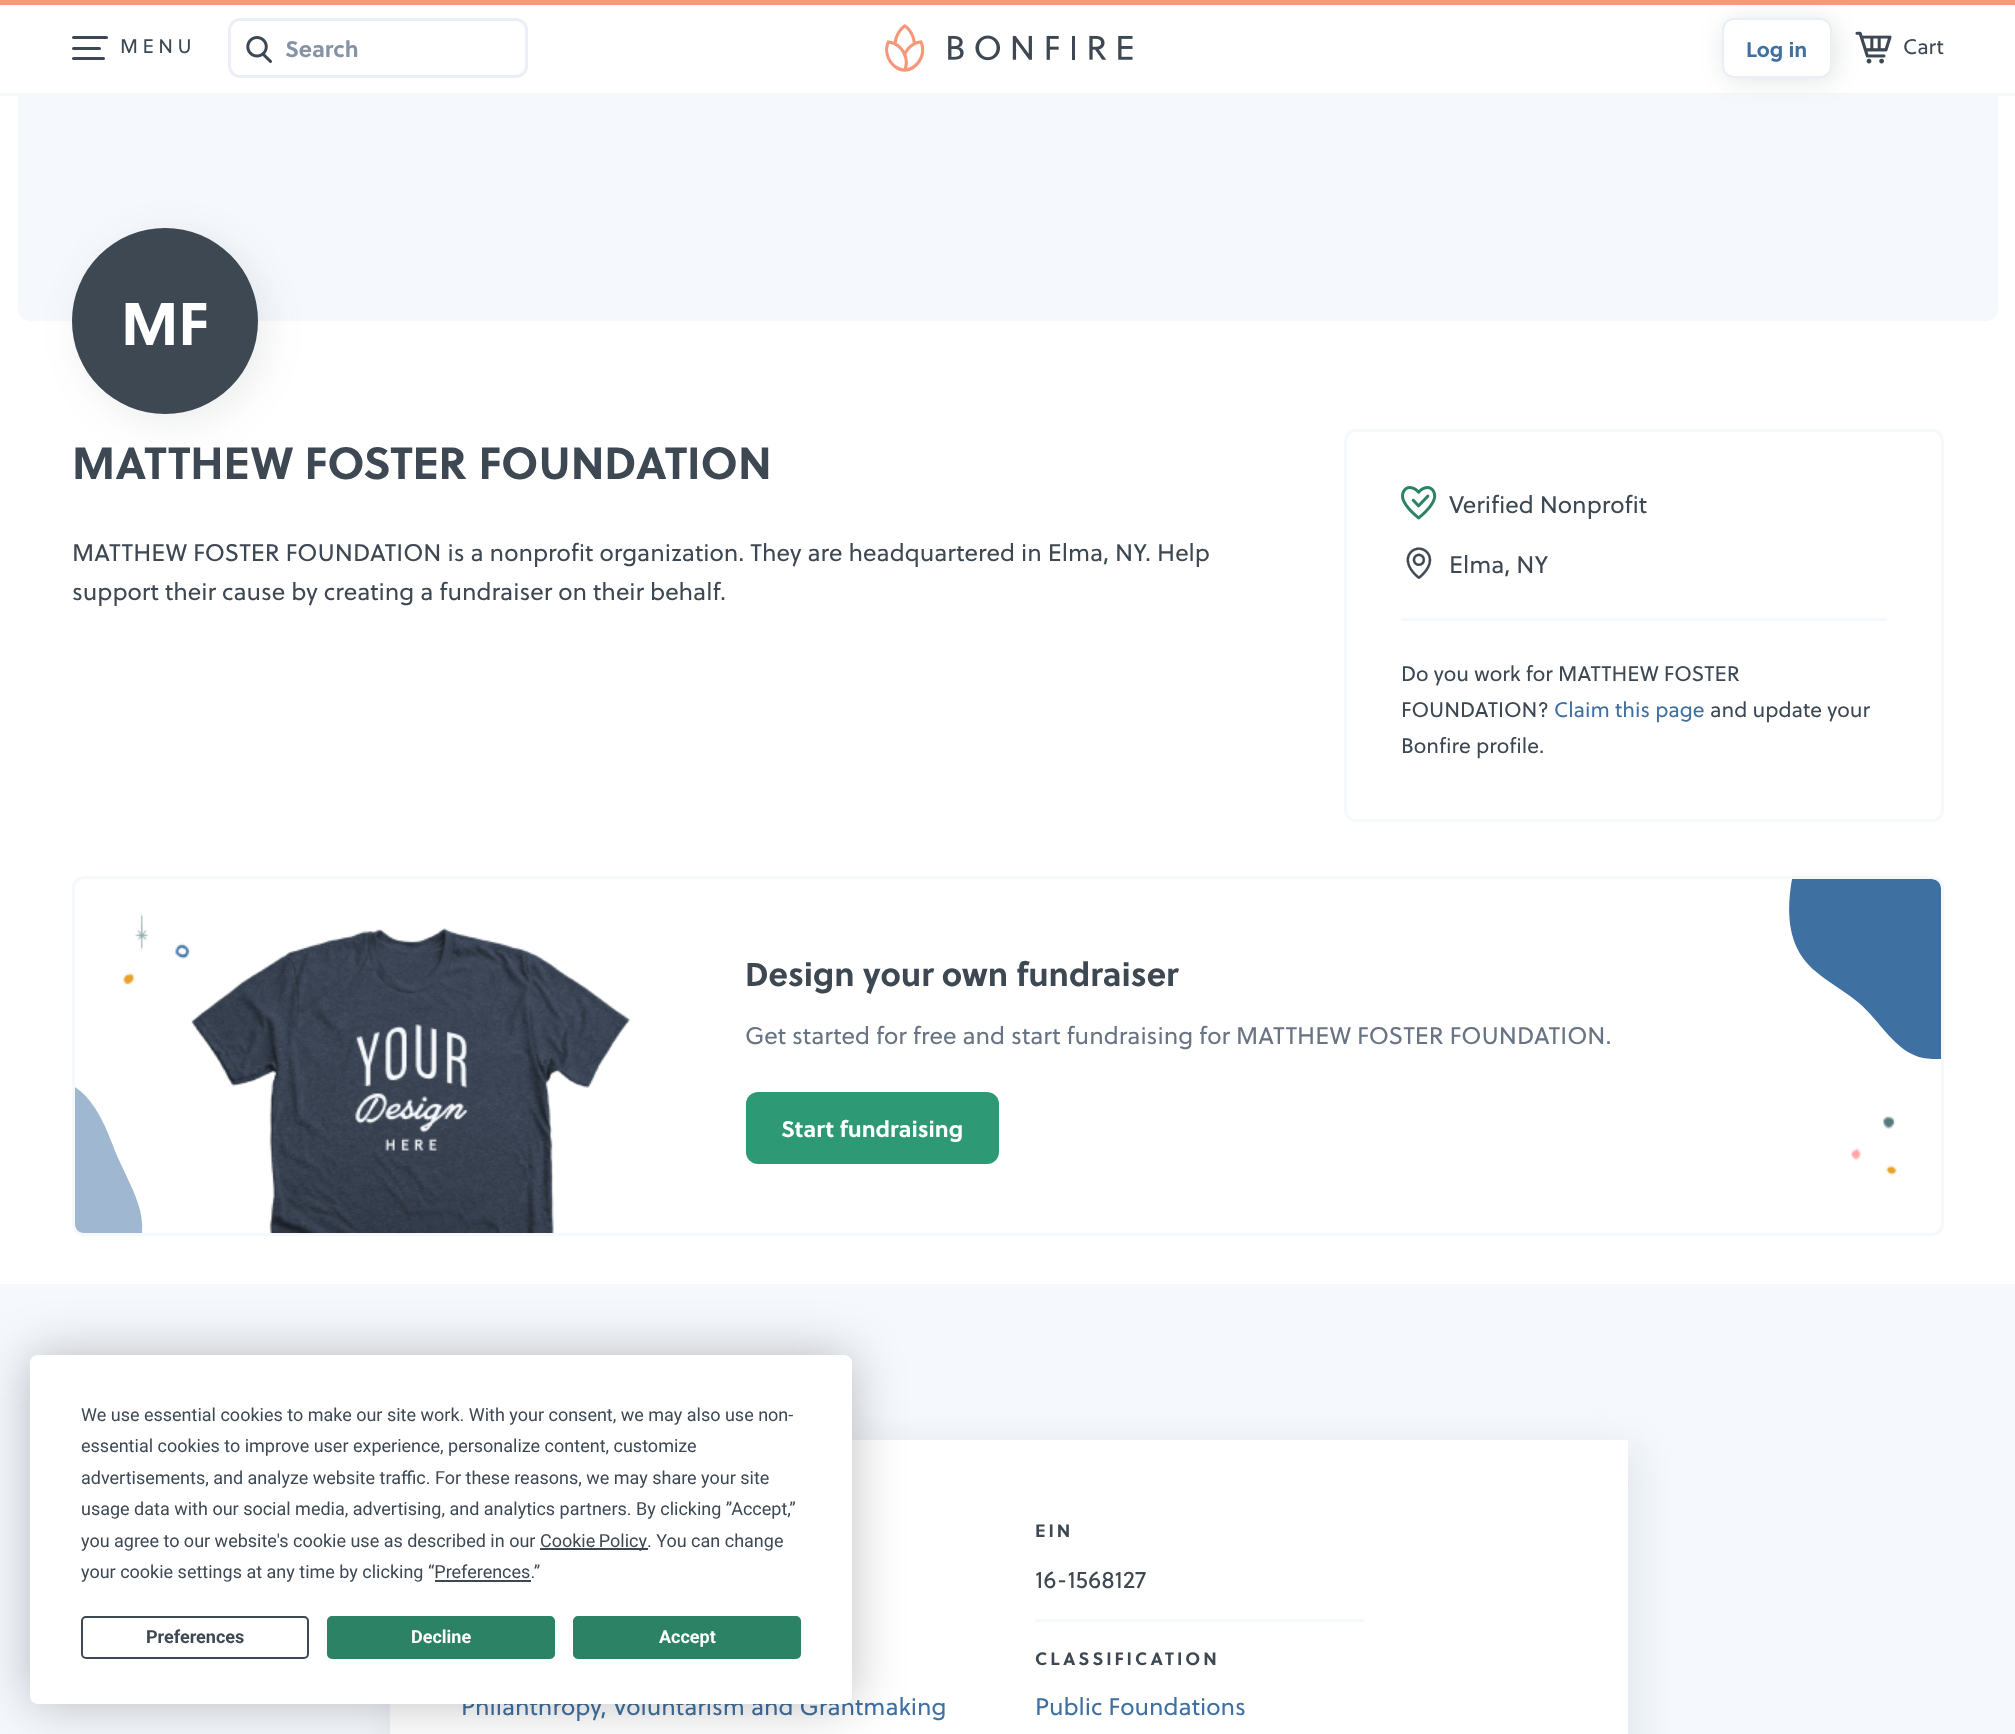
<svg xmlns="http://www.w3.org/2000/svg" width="2015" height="1734">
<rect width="100%" height="100%" fill="#fff"/>
<rect y="93" width="2015" height="3" fill="#f5f8fc"/>
<path d="M18 96h1980v213c0 6.5-5.5 12-12 12h-1956c-6.5 0-12-5.5-12-12z" fill="#f5f8fc"/>
<rect x="1725" y="21" width="110" height="60" rx="12" fill="#3d485326" filter="blur(12px)"/>
<rect width="2015" height="5" fill="#f49979"/>
<rect x="72" y="36" width="36" height="3" rx="1.5" fill="#3d4853"/>
<rect x="72" y="47" width="29" height="3" rx="1.5" fill="#3d4853"/>
<text x="120" y="53" style="font-family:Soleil;font-size:19.5px;letter-spacing:4.5px;fill:#3d4853">MENU</text>
<rect x="72" y="57" width="33" height="3" rx="1.5" fill="#3d4853"/>
<rect x="229.5" y="19.5" width="297" height="57" rx="10.5" fill="none" stroke="#eaeff7" stroke-width="3"/>
<image x="246" y="36" width="26" height="27" href="media/1.png"/>
<text x="285" y="57" style="font-family:Soleil;font-size:22.5px;font-weight:bold;fill:#8693a6">Search</text>
<image x="885" y="24" width="248" height="48" href="media/2.png"/>
<rect x="1723" y="19" width="108" height="58" rx="11" fill="#fff" stroke="#eaeff7" stroke-width="2"/>
<text x="1746" y="57" style="font-family:Soleil;font-size:21px;font-weight:bold;fill:#3f70a2">Log in</text>
<image x="1855" y="31" width="37" height="33" href="media/3.png"/>
<text x="1903" y="54" style="font-family:Soleil;font-size:21px;fill:#3d4853">Cart</text>
<rect x="80" y="236" width="186" height="186" rx="93" fill="#3d48531a" filter="blur(19px)"/>
<circle cx="165" cy="321" r="93" fill="#3d4853"/>
<text x="121" y="345" style="font-family:Soleil;font-size:60px;font-weight:bold;fill:#fff">MF</text>
<text x="72" y="479" style="font-family:Soleil;font-size:45px;font-weight:bold;fill:#3d4853">MATTHEW FOSTER FOUNDATION</text>
<text x="72" y="561" style="font-family:Soleil;font-size:24px;fill:#3d4853">MATTHEW FOSTER FOUNDATION is a nonprofit organization. They are headquartered in Elma, NY. Help</text>
<text x="72" y="600" style="font-family:Soleil;font-size:24px;fill:#3d4853">support their cause by creating a fundraiser on their behalf.</text>
<rect x="1345.5" y="430.5" width="597" height="390" rx="10.5" fill="none" stroke="#f5f8fc" stroke-width="3"/>
<image x="1401" y="486" width="36" height="34" href="media/4.png"/>
<text x="1449" y="513" style="font-family:Soleil;font-size:24px;fill:#3d4853">Verified Nonprofit</text>
<image x="1406" y="547" width="26" height="32" href="media/5.png"/>
<text x="1449" y="573" style="font-family:Soleil;font-size:24px;fill:#3d4853">Elma, NY</text>
<rect x="1401" y="618" width="486" height="3" fill="#f5f8fc"/>
<text x="1401" y="681" style="font-family:Soleil;font-size:21px;fill:#3d4853">Do you work for MATTHEW FOSTER</text>
<text x="1401" y="717" style="font-family:Soleil;font-size:21px;fill:#3d4853">FOUNDATION?</text>
<text x="1554" y="717" style="font-family:Soleil;font-size:21px;fill:#3f70a2">Claim this page</text>
<text x="1710" y="717" style="font-family:Soleil;font-size:21px;fill:#3d4853">and update your</text>
<text x="1401" y="753" style="font-family:Soleil;font-size:21px;fill:#3d4853">Bonfire profile.</text>
<path d="M1941 1059c-6 0-12 0-18-1c-28-6-42-36-64-55c-21-18-50-29-62-55c-10-21-9-46-5-69h140c5 0 9 4 9 9z" fill="#3f70a2"/>
<rect x="73.5" y="877.5" width="1869" height="357" rx="10.5" fill="none" stroke="#f5f8fc" stroke-width="3"/>
<path d="M142 1233h-58c-5 0-9-4-9-9v-137l4 3c21 17 29 44 39 68l8 17c9 19 18 38 16 58z" fill="#3f70a280"/>
<image x="122" y="914" width="68" height="71" href="media/6.png"/>
<image x="191" y="928" width="440" height="305" href="media/7.png"/>
<text x="745" y="986" style="font-family:Soleil;font-size:33px;font-weight:bold;fill:#3d4853">Design your own fundraiser</text>
<text x="745" y="1044" style="font-family:Soleil;font-size:24px;fill:#687383">Get started for free and start fundraising for MATTHEW FOSTER FOUNDATION.</text>
<rect x="746" y="1092" width="253" height="72" rx="12" fill="#2e9975"/>
<text x="781" y="1137" style="font-family:Soleil;font-size:22.5px;font-weight:bold;fill:#fff">Start fundraising</text>
<image x="1851" y="1116" width="46" height="59" href="media/8.png"/>
<rect y="1284" width="2015" height="450" fill="#f5f8fc"/>
<rect x="398" y="1448" width="1237" height="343" fill="#bdcad866" filter="blur(19px)"/>
<rect x="390" y="1440" width="1238" height="294" fill="#fff"/>
<text x="1035" y="1537" style="font-family:Soleil;font-size:18px;font-weight:bold;letter-spacing:3px;fill:#3d4853">EIN</text>
<text x="1035" y="1588" style="font-family:Soleil;font-size:24px;fill:#3d4853">16-1568127</text>
<rect x="1035" y="1619" width="329" height="3" fill="#f5f8fc"/>
<text x="461" y="1715" style="font-family:Soleil;font-size:24px;fill:#3f70a2">Philanthropy, Voluntarism and Grantmaking</text>
<text x="1035" y="1665" style="font-family:Soleil;font-size:18px;font-weight:bold;letter-spacing:3px;fill:#3d4853">CLASSIFICATION</text>
<text x="1035" y="1715" style="font-family:Soleil;font-size:24px;fill:#3f70a2">Public Foundations</text>
<rect x="30" y="1355" width="822" height="349" rx="8" fill="#00000040" filter="blur(26px)"/>
<rect x="30" y="1355" width="822" height="349" rx="8" fill="#fff"/>
<text x="81" y="1421" style="font-family:Roboto;font-size:18px;fill:#3d4853">We use essential cookies to make our site work. With your consent, we may also use non-</text>
<text x="81" y="1452" style="font-family:Roboto;font-size:18px;fill:#3d4853">essential cookies to improve user experience, personalize content, customize</text>
<text x="81" y="1484" style="font-family:Roboto;font-size:18px;fill:#3d4853">advertisements, and analyze website traffic. For these reasons, we may share your site</text>
<text x="81" y="1515" style="font-family:Roboto;font-size:18px;fill:#3d4853">usage data with our social media, advertising, and analytics partners. By clicking ”Accept,”</text>
<text x="81" y="1547" style="font-family:Roboto;font-size:18px;fill:#3d4853">you agree to our website's cookie use as described in our</text>
<rect x="540" y="1548" width="108" height="2" fill="#3d4853"/>
<text x="540" y="1547" word-spacing="-1" style="font-family:Roboto;font-size:18px;fill:#3d4853">Cookie Policy</text>
<text x="647" y="1547" style="font-family:Roboto;font-size:18px;fill:#3d4853">. You can change</text>
<text x="81" y="1578" style="font-family:Roboto;font-size:18px;fill:#3d4853">your cookie settings at any time by clicking “Preferences.”</text>
<rect x="435" y="1580" width="96" height="2" fill="#3d4853"/>
<rect x="82" y="1617" width="226" height="41" rx="4" fill="none" stroke="#3d4853" stroke-width="2"/>
<text x="146" y="1643" style="font-family:Roboto;font-size:18px;font-weight:bold;fill:#3d4853">Preferences</text>
<rect x="328" y="1617" width="226" height="41" rx="4" fill="#2b8265" stroke="#2b8265" stroke-width="2"/>
<text x="411" y="1643" style="font-family:Roboto;font-size:18px;font-weight:bold;fill:#fff">Decline</text>
<rect x="574" y="1617" width="226" height="41" rx="4" fill="#2b8265" stroke="#2b8265" stroke-width="2"/>
<text x="659" y="1643" style="font-family:Roboto;font-size:18px;font-weight:bold;fill:#fff">Accept</text>
</svg>
